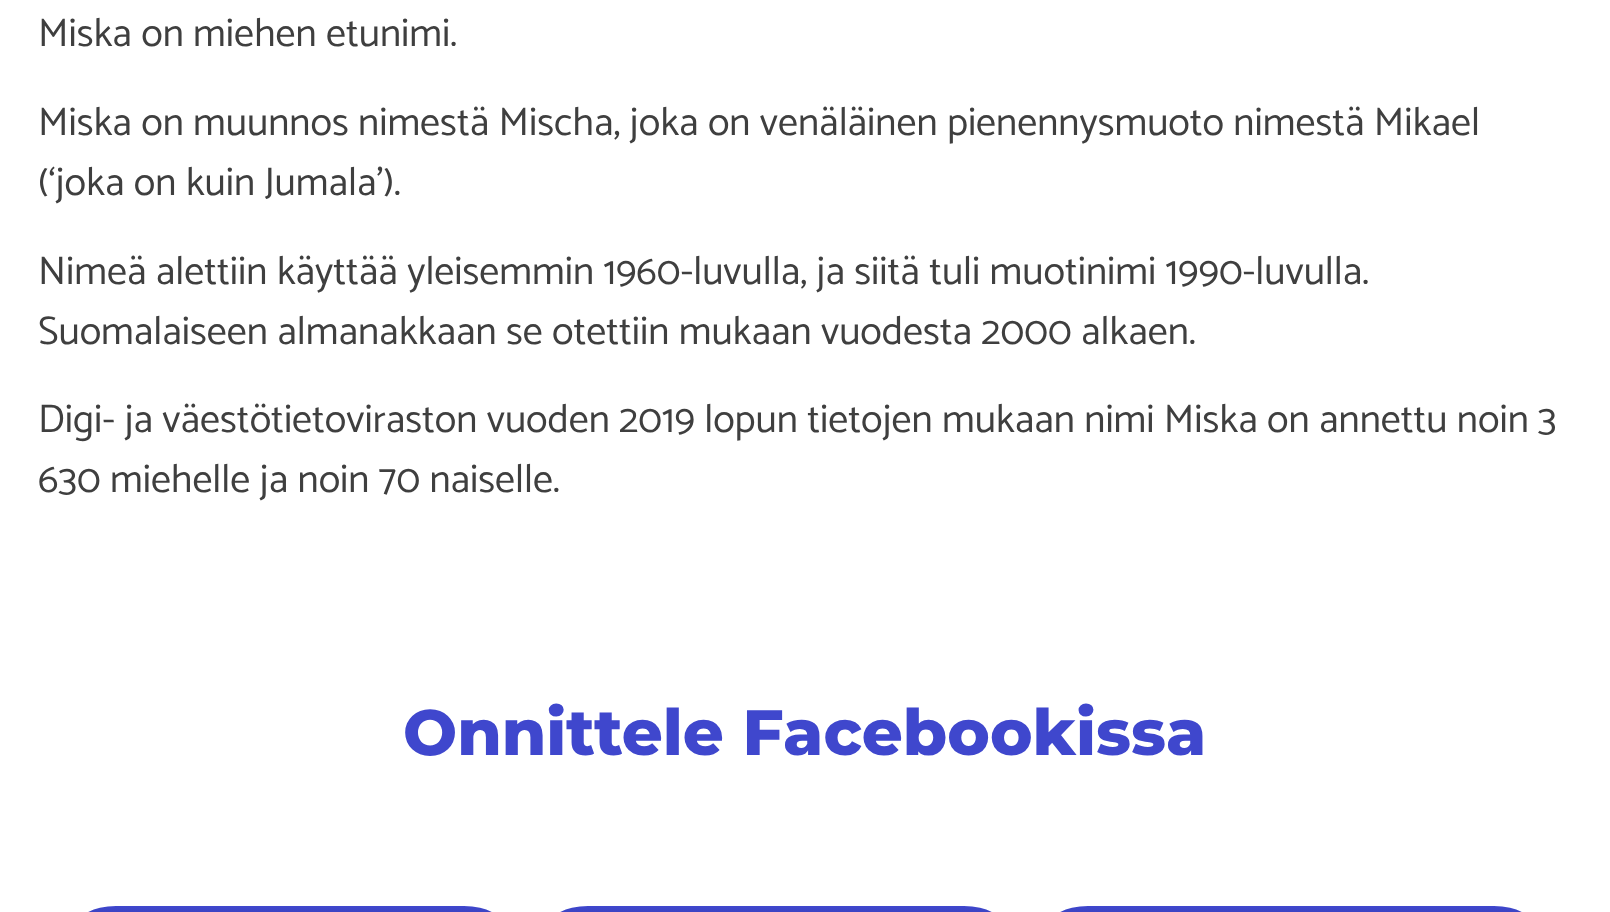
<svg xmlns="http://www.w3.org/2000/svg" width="1610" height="912">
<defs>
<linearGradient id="g1" gradientUnits="userSpaceOnUse" x1="290" y1="906" x2="290" y2="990"><stop offset="0" stop-color="#3f47cd"/><stop offset="1" stop-color="#13164e"/></linearGradient>
<linearGradient id="g2" gradientUnits="userSpaceOnUse" x1="776" y1="906" x2="776" y2="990"><stop offset="0" stop-color="#3f47cd"/><stop offset="1" stop-color="#13164e"/></linearGradient>
<linearGradient id="g3" gradientUnits="userSpaceOnUse" x1="1291" y1="906" x2="1291" y2="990"><stop offset="0" stop-color="#3f47cd"/><stop offset="1" stop-color="#13164e"/></linearGradient>
</defs>
<rect width="100%" height="100%" fill="#fff"/>
<text x="38" y="46" style="font-family:Catamaran;font-size:40px;fill:#3f3f3f">Miska on miehen etunimi.</text>
<text x="38" y="135" style="font-family:Catamaran;font-size:40px;fill:#3f3f3f">Miska on muunnos nimestä Mischa, joka on venäläinen pienennysmuoto nimestä Mikael</text>
<text x="38" y="195" style="font-family:Catamaran;font-size:40px;fill:#3f3f3f">(‘joka on kuin Jumala’).</text>
<text x="38" y="284" style="font-family:Catamaran;font-size:40px;fill:#3f3f3f">Nimeä alettiin käyttää yleisemmin 1960-luvulla, ja siitä tuli muotinimi 1990-luvulla.</text>
<text x="38" y="344" style="font-family:Catamaran;font-size:40px;fill:#3f3f3f">Suomalaiseen almanakkaan se otettiin mukaan vuodesta 2000 alkaen.</text>
<text x="38" y="432" style="font-family:Catamaran;font-size:40px;fill:#3f3f3f">Digi- ja väestötietoviraston vuoden 2019 lopun tietojen mukaan nimi Miska on annettu noin 3</text>
<text x="38" y="492" style="font-family:Catamaran;font-size:40px;fill:#3f3f3f">630 miehelle ja noin 70 naiselle.</text>
<text x="403" y="755" style="font-family:Montserrat;font-size:64px;font-weight:800;fill:#3f47cd">Onnittele Facebookissa</text>
<rect x="74" y="906" width="432" height="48" rx="42" fill="url(#g1)"/>
<rect x="546" y="906" width="460" height="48" rx="42" fill="url(#g2)"/>
<rect x="1046" y="906" width="490" height="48" rx="42" fill="url(#g3)"/>
</svg>
